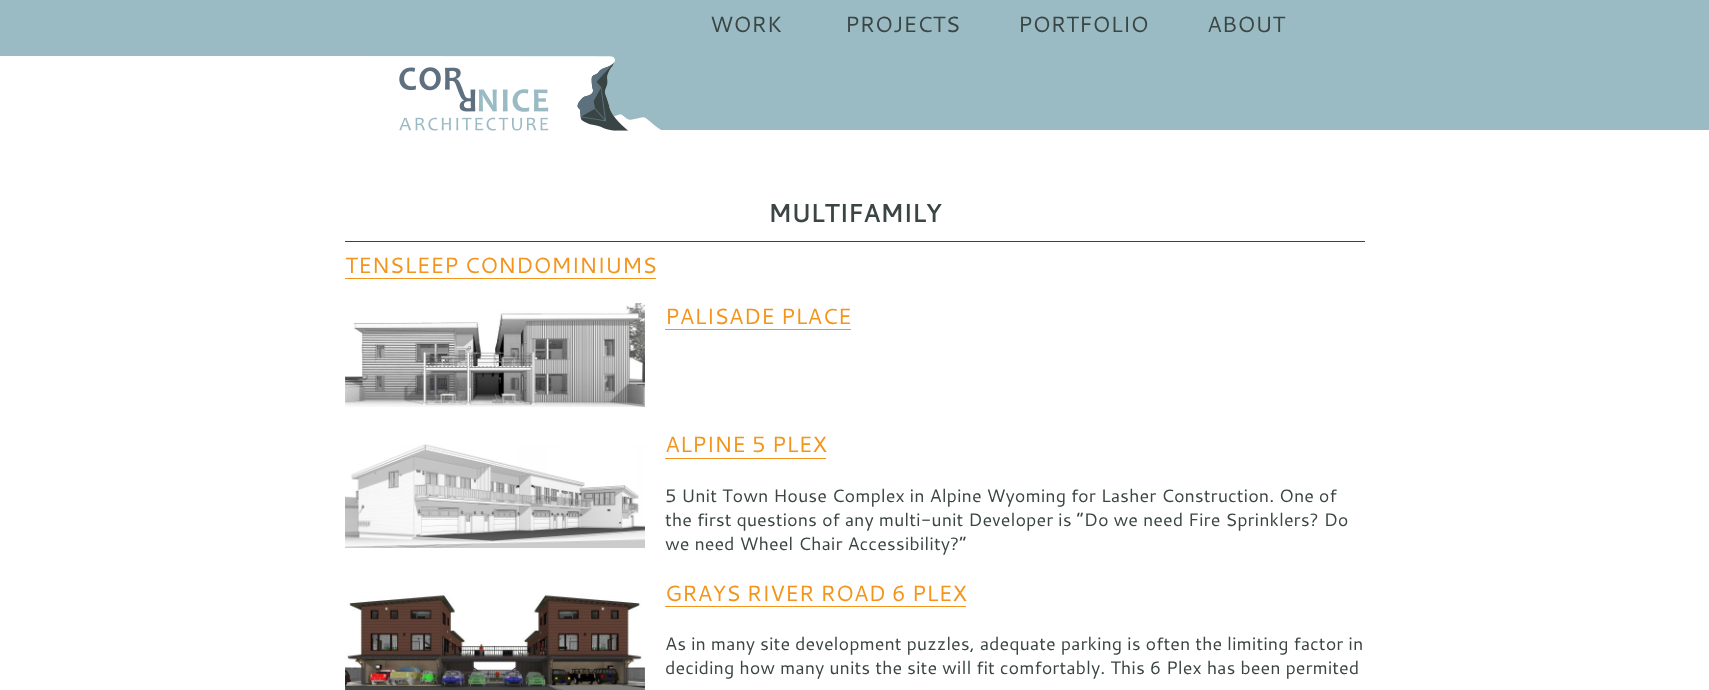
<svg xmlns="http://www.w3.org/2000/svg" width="1709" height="690">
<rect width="100%" height="100%" fill="#fff"/>
<rect width="1709" height="130" fill="#9abbc4"/>
<text x="710" y="32" style="font-family:Cantarell;font-size:22px;fill:#3a4544">WORK</text>
<text x="845" y="32" style="font-family:Cantarell;font-size:22px;fill:#3a4544">PROJECTS</text>
<text x="1018" y="32" style="font-family:Cantarell;font-size:22px;fill:#3a4544">PORTFOLIO</text>
<text x="1207" y="32" style="font-family:Cantarell;font-size:22px;fill:#3a4544">ABOUT</text>
<rect y="56" width="355" height="74" fill="#fff"/>
<image x="355" y="56" width="350" height="95" href="media/1.png"/>
<rect x="345" y="241" width="1020" height="1" fill="#3a4544"/>
<text x="768" y="222" style="font-family:Cantarell;font-size:25px;font-weight:bold;fill:#3a4544">MULTIFAMILY</text>
<rect x="345" y="278" width="311" height="1" fill="#f3941c"/>
<text x="345" y="273" style="font-family:Cantarell;font-size:22px;fill:#f3941c">TENSLEEP CONDOMINIUMS</text>
<image x="345" y="303" width="300" height="104" href="media/2.png"/>
<rect x="665" y="329" width="186" height="1" fill="#f3941c"/>
<text x="665" y="324" style="font-family:Cantarell;font-size:22px;fill:#f3941c">PALISADE PLACE</text>
<image x="345" y="444" width="300" height="104" href="media/3.png"/>
<rect x="665" y="458" width="161" height="1" fill="#f3941c"/>
<text x="665" y="452" style="font-family:Cantarell;font-size:22px;fill:#f3941c">ALPINE 5 PLEX</text>
<text x="665" y="502" style="font-family:Cantarell;font-size:18px;fill:#3a4544">5 Unit Town House Complex in Alpine Wyoming for Lasher Construction. One of</text>
<text x="665" y="526" style="font-family:Cantarell;font-size:18px;fill:#3a4544">the first questions of any multi-unit Developer is “Do we need Fire Sprinklers? Do</text>
<text x="665" y="550" style="font-family:Cantarell;font-size:18px;fill:#3a4544">we need Wheel Chair Accessibility?”</text>
<image x="345" y="595" width="300" height="95" href="media/4.png"/>
<rect x="665" y="606" width="301" height="1" fill="#f3941c"/>
<text x="665" y="601" style="font-family:Cantarell;font-size:22px;fill:#f3941c">GRAYS RIVER ROAD 6 PLEX</text>
<text x="665" y="650" style="font-family:Cantarell;font-size:18px;fill:#3a4544">As in many site development puzzles, adequate parking is often the limiting factor in</text>
<text x="665" y="674" style="font-family:Cantarell;font-size:18px;fill:#3a4544">deciding how many units the site will fit comfortably. This 6 Plex has been permited</text>
</svg>
